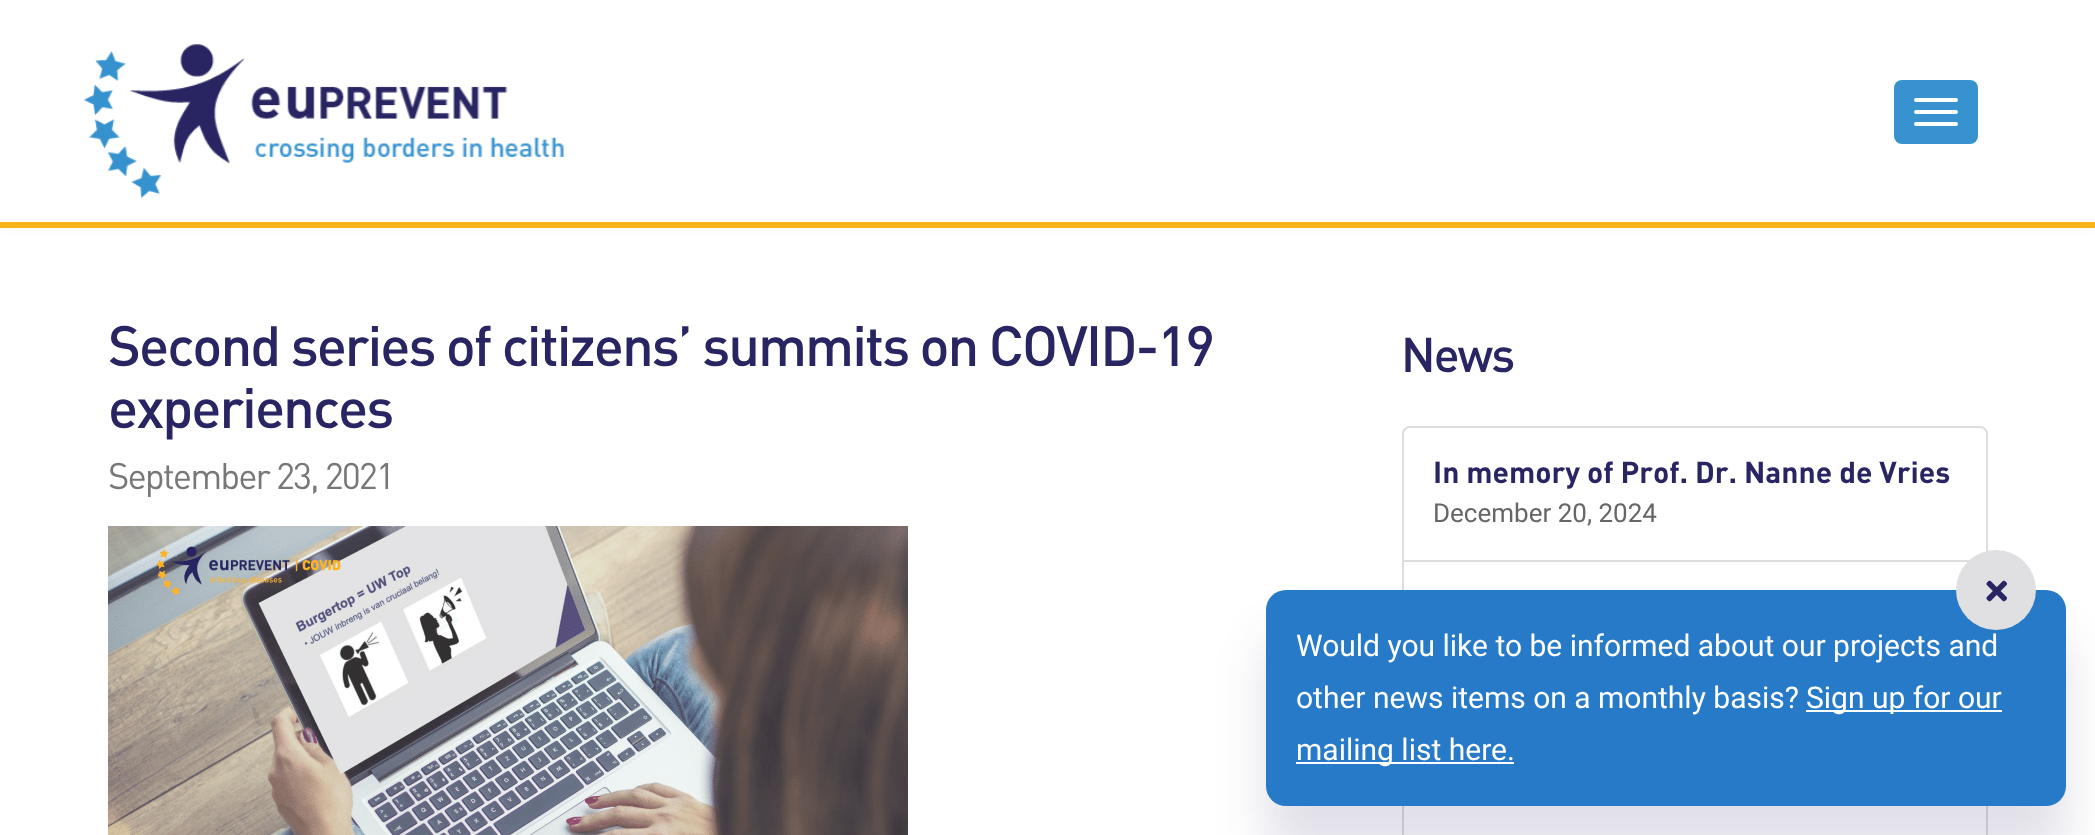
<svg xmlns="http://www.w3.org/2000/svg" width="2095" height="835">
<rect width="100%" height="100%" fill="#fff"/>
<rect y="222" width="2095" height="6" fill="#ffb819"/>
<rect y="2" width="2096" height="222" fill="#0000000d" filter="blur(8px)"/>
<rect width="2095" height="222" fill="#fff"/>
<image x="83" y="44" width="482" height="155" href="media/1.png"/>
<rect x="1894" y="80" width="84" height="64" rx="8" fill="#3892d0"/>
<rect x="1914" y="98" width="44" height="4" rx="2" fill="#fff"/>
<rect x="1914" y="110" width="44" height="4" rx="2" fill="#fff"/>
<rect x="1914" y="122" width="44" height="4" rx="2" fill="#fff"/>
<text x="108" y="366" style="font-family:DIN;font-size:56px;font-weight:500;letter-spacing:-2px;fill:#282562">Second series of citizens’ summits on COVID-19</text>
<text x="108" y="428" style="font-family:DIN;font-size:56px;font-weight:500;letter-spacing:-2px;fill:#282562">experiences</text>
<text x="108" y="489" style="font-family:DIN;font-size:36.5px;letter-spacing:-2px;fill:#777">September 23, 2021</text>
<image x="108" y="526" width="800" height="309" href="media/2.png"/>
<text x="1401" y="372" style="font-family:DIN;font-size:48px;font-weight:500;letter-spacing:-2px;fill:#282562">News</text>
<path d="M1410 427h570c4 0 7 3 7 7v127h-584v-127c0-4 3-7 7-7z" fill="none" stroke="#ddd" stroke-width="2"/>
<text x="1433" y="483" style="font-family:DIN;font-size:30px;font-weight:bold;fill:#282562">In memory of Prof. Dr. Nanne de Vries</text>
<text x="1433" y="522" style="font-family:Roboto;font-size:26px;fill:#666">December 20, 2024</text>
<rect x="1403" y="561" width="584" height="198" fill="none" stroke="#ddd" stroke-width="2"/>
<rect x="1403" y="759" width="584" height="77" fill="none" stroke="#ddd" stroke-width="2"/>
<rect x="1266" y="638" width="800" height="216" rx="20" fill="#28256224" filter="blur(24px)"/>
<rect x="1266" y="590" width="800" height="216" rx="20" fill="#277ac7"/>
<circle cx="1996" cy="590" r="40" fill="#e0e0e2"/>
<image x="1986" y="580" width="21" height="22" href="media/3.png"/>
<text x="1296" y="656" style="font-family:Roboto;font-size:30px;fill:#fff">Would you like to be informed about our projects and</text>
<text x="1296" y="708" style="font-family:Roboto;font-size:30px;fill:#fff">other news items on a monthly basis?</text>
<rect x="1806" y="710" width="196" height="2" fill="#fff"/>
<text x="1806" y="708" style="font-family:Roboto;font-size:30px;fill:#fff">Sign up for our</text>
<rect x="1296" y="762" width="218" height="2" fill="#fff"/>
<text x="1296" y="760" style="font-family:Roboto;font-size:30px;fill:#fff">mailing list here.</text>
</svg>
